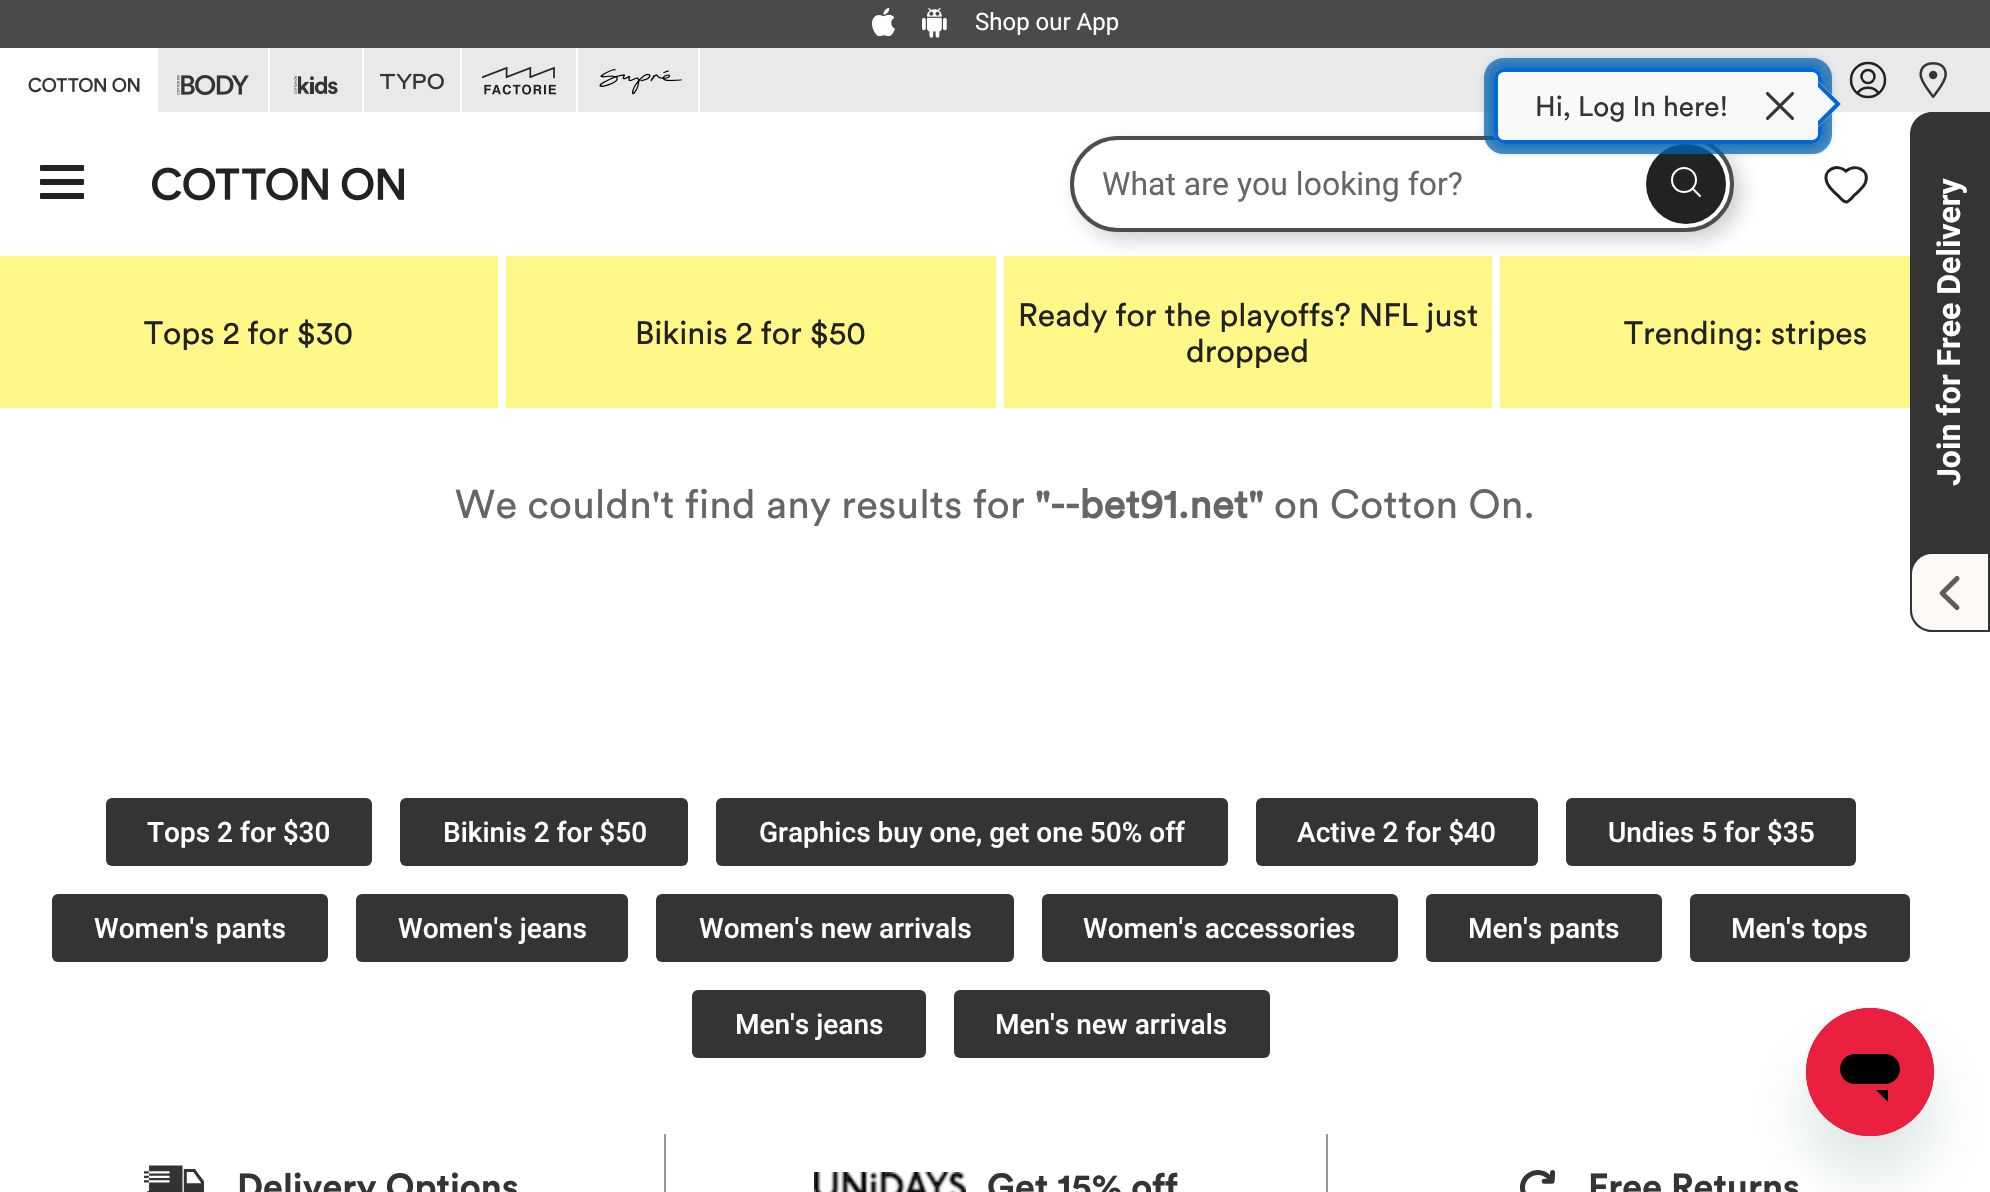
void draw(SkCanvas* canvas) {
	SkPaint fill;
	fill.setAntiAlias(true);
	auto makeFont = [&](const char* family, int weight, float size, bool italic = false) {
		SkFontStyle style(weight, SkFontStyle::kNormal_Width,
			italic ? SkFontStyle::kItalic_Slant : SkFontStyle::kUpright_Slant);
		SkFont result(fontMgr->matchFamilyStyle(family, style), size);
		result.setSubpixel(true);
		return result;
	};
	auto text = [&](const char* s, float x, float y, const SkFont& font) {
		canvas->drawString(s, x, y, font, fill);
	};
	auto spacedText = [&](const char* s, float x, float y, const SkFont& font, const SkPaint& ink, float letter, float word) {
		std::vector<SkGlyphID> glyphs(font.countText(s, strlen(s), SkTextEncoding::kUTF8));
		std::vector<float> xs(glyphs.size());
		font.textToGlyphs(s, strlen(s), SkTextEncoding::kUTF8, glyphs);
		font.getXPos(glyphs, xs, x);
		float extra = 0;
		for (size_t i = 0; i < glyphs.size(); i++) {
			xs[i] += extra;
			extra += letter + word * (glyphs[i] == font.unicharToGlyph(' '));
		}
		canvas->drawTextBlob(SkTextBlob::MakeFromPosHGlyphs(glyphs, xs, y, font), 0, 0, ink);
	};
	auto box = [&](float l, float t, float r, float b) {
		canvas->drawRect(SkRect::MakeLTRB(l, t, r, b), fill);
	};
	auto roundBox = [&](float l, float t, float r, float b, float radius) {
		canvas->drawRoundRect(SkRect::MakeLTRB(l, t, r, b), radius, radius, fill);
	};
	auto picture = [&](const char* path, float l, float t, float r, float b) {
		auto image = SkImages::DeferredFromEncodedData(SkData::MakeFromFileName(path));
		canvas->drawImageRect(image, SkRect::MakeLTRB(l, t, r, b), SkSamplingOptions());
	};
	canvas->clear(0xFFFFFFFF);
	fill.setColor(0xFF4A4A4A);
	box(0, 0, 1990, 48);
	picture("image0.png", 872, 8, 895, 37);
	picture("image1.png", 922, 8, 947, 38);
	fill.setColor(0xFFE9E9E9);
	box(158, 48, 1990, 112);
	picture("image2.png", 28, 77, 140, 93);
	fill.setColor(0xFFFFFFFF);
	box(268, 48, 270, 114);
	picture("image3.png", 177, 75, 249, 95);
	box(362, 48, 364, 114);
	picture("image4.png", 294, 76, 338, 95);
	box(460, 48, 462, 114);
	picture("image5.png", 380, 73, 444, 90);
	box(576, 48, 578, 114);
	picture("image6.png", 482, 66, 556, 95);
	box(698, 48, 700, 114);
	picture("image7.png", 599, 69, 682, 95);
	box(1822, 68, 1826, 96);
	fill.setStyle(SkPaint::kStroke_Style);
	fill.setStrokeWidth(2.5f);
	fill.setColor(0xFF222222);
	canvas->drawCircle(1868, 80, 17, fill);
	canvas->drawCircle(1868, 76.5f, 6.5f, fill);
	fill.setStrokeCap(SkPaint::kRound_Cap);
	canvas->drawPath(SkPathBuilder().moveTo(1878, 92.5f).cubicTo(1873.5f, 86, 1862.5f, 86, 1858, 92.5f).detach(), fill);
	picture("image8.png", 1919, 62, 1947, 98);
	fill.setStyle(SkPaint::kFill_Style);
	fill.setColor(0xFFFFF888);
	box(0, 256, 1910, 408);
	fill.setColor(0xFFFFFFFF);
	box(1492, 256, 1500, 408);
	fill.setColor(0x33131313);
	fill.setMaskFilter(SkMaskFilter::MakeBlur(kNormal_SkBlurStyle, 10));
	canvas->drawRoundRect(SkRect::MakeLTRB(1078, 144, 1742, 240), 48, 48, fill);
	fill.setMaskFilter(nullptr);
	fill.setColor(0xFFFFFFFF);
	canvas->drawRoundRect(SkRect::MakeLTRB(1072, 138, 1732, 230), 46, 46, fill);
	fill.setStyle(SkPaint::kStroke_Style);
	fill.setStrokeWidth(4);
	fill.setStrokeCap(SkPaint::kButt_Cap);
	fill.setColor(0xFF4D4D4D);
	canvas->drawRoundRect(SkRect::MakeLTRB(1072, 138, 1732, 230), 46, 46, fill);
	fill.setStyle(SkPaint::kFill_Style);
	fill.setColor(0xFF222222);
	canvas->drawCircle(1686, 184, 40, fill);
	fill.setStyle(SkPaint::kStroke_Style);
	fill.setStrokeWidth(3);
	canvas->drawPath(SkPathBuilder().moveTo(1846, 202).cubicTo(1843, 202, 1839, 196.5f, 1837.5f, 195).cubicTo(1833.5f, 191.5f, 1829, 188, 1827, 182.5f).cubicTo(1822, 170, 1836.5f, 163, 1846, 171).cubicTo(1855, 163.5f, 1870, 169.5f, 1865.5f, 182.5f).cubicTo(1863.5f, 187.5f, 1858.5f, 191.5f, 1854.5f, 195).cubicTo(1852.5f, 197, 1849, 202, 1846, 202).close().detach(), fill);
	fill.setStyle(SkPaint::kFill_Style);
	fill.setColor(0xB30060AC);
	fill.setMaskFilter(SkMaskFilter::MakeBlur(kNormal_SkBlurStyle, 6));
	canvas->drawRoundRect(SkRect::MakeLTRB(1490, 64, 1826, 148), 14, 14, fill);
	fill.setMaskFilter(nullptr);
	fill.setColor(0xFFFFFFFF);
	roundBox(1494, 68, 1822, 144, 10);
	fill.setStyle(SkPaint::kStroke_Style);
	fill.setStrokeWidth(10);
	fill.setColor(0xB30060AC);
	canvas->drawRoundRect(SkRect::MakeLTRB(1489, 63, 1827, 149), 15, 15, fill);
	fill.setStrokeWidth(4);
	fill.setColor(0xFF0367D8);
	canvas->drawRoundRect(SkRect::MakeLTRB(1496, 70, 1820, 142), 8, 8, fill);
	fill.setStyle(SkPaint::kFill_Style);
	fill.setColor(0xFFF8F8F8);
	canvas->drawPath(SkPathBuilder().moveTo(1841, 104).lineTo(1818, 127).lineTo(1795, 104).lineTo(1818, 81).close().detach(), fill);
	fill.setStyle(SkPaint::kStroke_Style);
	fill.setColor(0xFF0367D8);
	canvas->drawPath(SkPathBuilder().moveTo(1838, 104).lineTo(1818, 124).lineTo(1798, 104).lineTo(1818, 84).close().detach(), fill);
	fill.setStyle(SkPaint::kFill_Style);
	fill.setColor(0xFFF8F8F8);
	roundBox(1498, 72, 1818, 140, 10);
	picture("image9.png", 1766, 92, 1794, 120);
	picture("image10.png", 40, 165, 84, 199);
	picture("image11.png", 152, 167, 404, 201);
	fill.setStyle(SkPaint::kStroke_Style);
	fill.setStrokeWidth(2);
	fill.setStrokeCap(SkPaint::kRound_Cap);
	fill.setColor(0xFFFFFFFF);
	canvas->drawPath(SkPathBuilder().moveTo(1693, 189).lineTo(1700, 196).detach(), fill);
	fill.setStrokeCap(SkPaint::kButt_Cap);
	canvas->drawCircle(1684, 180, 12, fill);
	fill.setStyle(SkPaint::kFill_Style);
	box(498, 256, 506, 408);
	box(996, 256, 1004, 408);
	fill.setColor(0xFF333434);
	canvas->drawPath(SkPathBuilder().moveTo(1932, 112).lineTo(1990, 112).lineTo(1990, 632).lineTo(1932, 632).cubicTo(1920, 632, 1910, 622, 1910, 610).lineTo(1910, 134).cubicTo(1910, 122, 1920, 112, 1932, 112).close().detach(), fill);
	fill.setColor(0xFFFCF8F4);
	canvas->drawPath(SkPathBuilder().moveTo(1932, 553).lineTo(1989, 553).lineTo(1989, 631).lineTo(1932, 631).cubicTo(1920.5f, 631, 1911, 621.5f, 1911, 610).lineTo(1911, 574).cubicTo(1911, 562.5f, 1920.5f, 553, 1932, 553).close().detach(), fill);
	fill.setStyle(SkPaint::kStroke_Style);
	fill.setColor(0xFF333434);
	canvas->drawPath(SkPathBuilder().moveTo(1932, 553).lineTo(1989, 553).lineTo(1989, 631).lineTo(1932, 631).cubicTo(1920.5f, 631, 1911, 621.5f, 1911, 610).lineTo(1911, 574).cubicTo(1911, 562.5f, 1920.5f, 553, 1932, 553).close().detach(), fill);
	picture("image12.png", 1939, 576, 1960, 610);
	fill.setStyle(SkPaint::kFill_Style);
	roundBox(106, 798, 372, 866, 6);
	roundBox(400, 798, 688, 866, 6);
	roundBox(716, 798, 1228, 866, 6);
	roundBox(1256, 798, 1538, 866, 6);
	roundBox(1566, 798, 1856, 866, 6);
	roundBox(52, 894, 328, 962, 6);
	roundBox(356, 894, 628, 962, 6);
	roundBox(656, 894, 1014, 962, 6);
	roundBox(1042, 894, 1398, 962, 6);
	roundBox(1426, 894, 1662, 962, 6);
	roundBox(1690, 894, 1910, 962, 6);
	roundBox(692, 990, 926, 1058, 6);
	roundBox(954, 990, 1270, 1058, 6);
	picture("image13.png", 144, 1165, 204, 1192);
	fill.setColor(0xFF979797);
	box(664, 1134, 666, 1192);
	picture("image14.png", 814, 1172, 966, 1192);
	box(1326, 1134, 1328, 1192);
	picture("image15.png", 1520, 1170, 1556, 1192);
	fill.setColor(0x2617494D);
	fill.setMaskFilter(SkMaskFilter::MakeBlur(kNormal_SkBlurStyle, 30));
	canvas->drawRoundRect(SkRect::MakeLTRB(1806, 1048, 1934, 1176), 64, 64, fill);
	fill.setMaskFilter(nullptr);
	picture("image16.png", 1806, 1008, 1934, 1136);
	auto font1 = makeFont("Roboto", 400, 24);
	fill.setColor(0xFFFFFFFF);
	text("Shop our App", 975, 30, font1);
	auto font2 = makeFont("Circular", 400, 28);
	fill.setColor(0xFF333434);
	text("Hi, Log In here!", 1535, 116, font2);
	auto font3 = makeFont("Roboto", 400, 32);
	fill.setColor(0xFF666666);
	text("What are you looking for?", 1102, 195, font3);
	auto font4 = makeFont("Circular", 400, 32);
	fill.setColor(0xFF222222);
	text("Tops 2 for $30", 144, 344, font4);
	text("Bikinis 2 for $50", 635, 344, font4);
	text("Ready for the playoffs? NFL just", 1018, 326, font4);
	text("dropped", 1186, 362, font4);
	text("Trending: stripes", 1624, 344, font4);
	auto font5 = makeFont("Roboto", 700, 32);
	fill.setColor(0xFFFFFFFF);
	canvas->save();
	canvas->rotate(-90, 1960, 486);
	text("Join for Free Delivery", 1960, 486, font5);
	canvas->restore();
	auto font6 = makeFont("Circular", 400, 40);
	fill.setColor(0xFF666666);
	spacedText("We couldn't find any results for", 455, 518, font6, fill, 0.25f, 0);
	auto font7 = makeFont("Circular", 700, 40);
	spacedText("\"--bet91.net\"", 1035, 518, font7, fill, 0.25f, 0);
	spacedText("on Cotton On.", 1274, 518, font6, fill, 0.25f, 0);
	auto font8 = makeFont("Roboto", 500, 28);
	fill.setColor(0xFFFFFFFF);
	text("Tops 2 for $30", 147, 842, font8);
	text("Bikinis 2 for $50", 443, 842, font8);
	text("Graphics buy one, get one 50% off", 759, 842, font8);
	text("Active 2 for $40", 1297, 842, font8);
	text("Undies 5 for $35", 1608, 842, font8);
	text("Women's pants", 94, 938, font8);
	text("Women's jeans", 398, 938, font8);
	text("Women's new arrivals", 699, 938, font8);
	text("Women's accessories", 1083, 938, font8);
	text("Men's pants", 1468, 938, font8);
	text("Men's tops", 1731, 938, font8);
	text("Men's jeans", 735, 1034, font8);
	text("Men's new arrivals", 995, 1034, font8);
	auto font9 = makeFont("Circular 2", 700, 36);
	fill.setColor(0xFF333434);
	text("Delivery Options", 237, 1199, font9);
	text("Get 15% off", 987, 1199, font9);
	text("Free Returns", 1588, 1199, font9);
}
